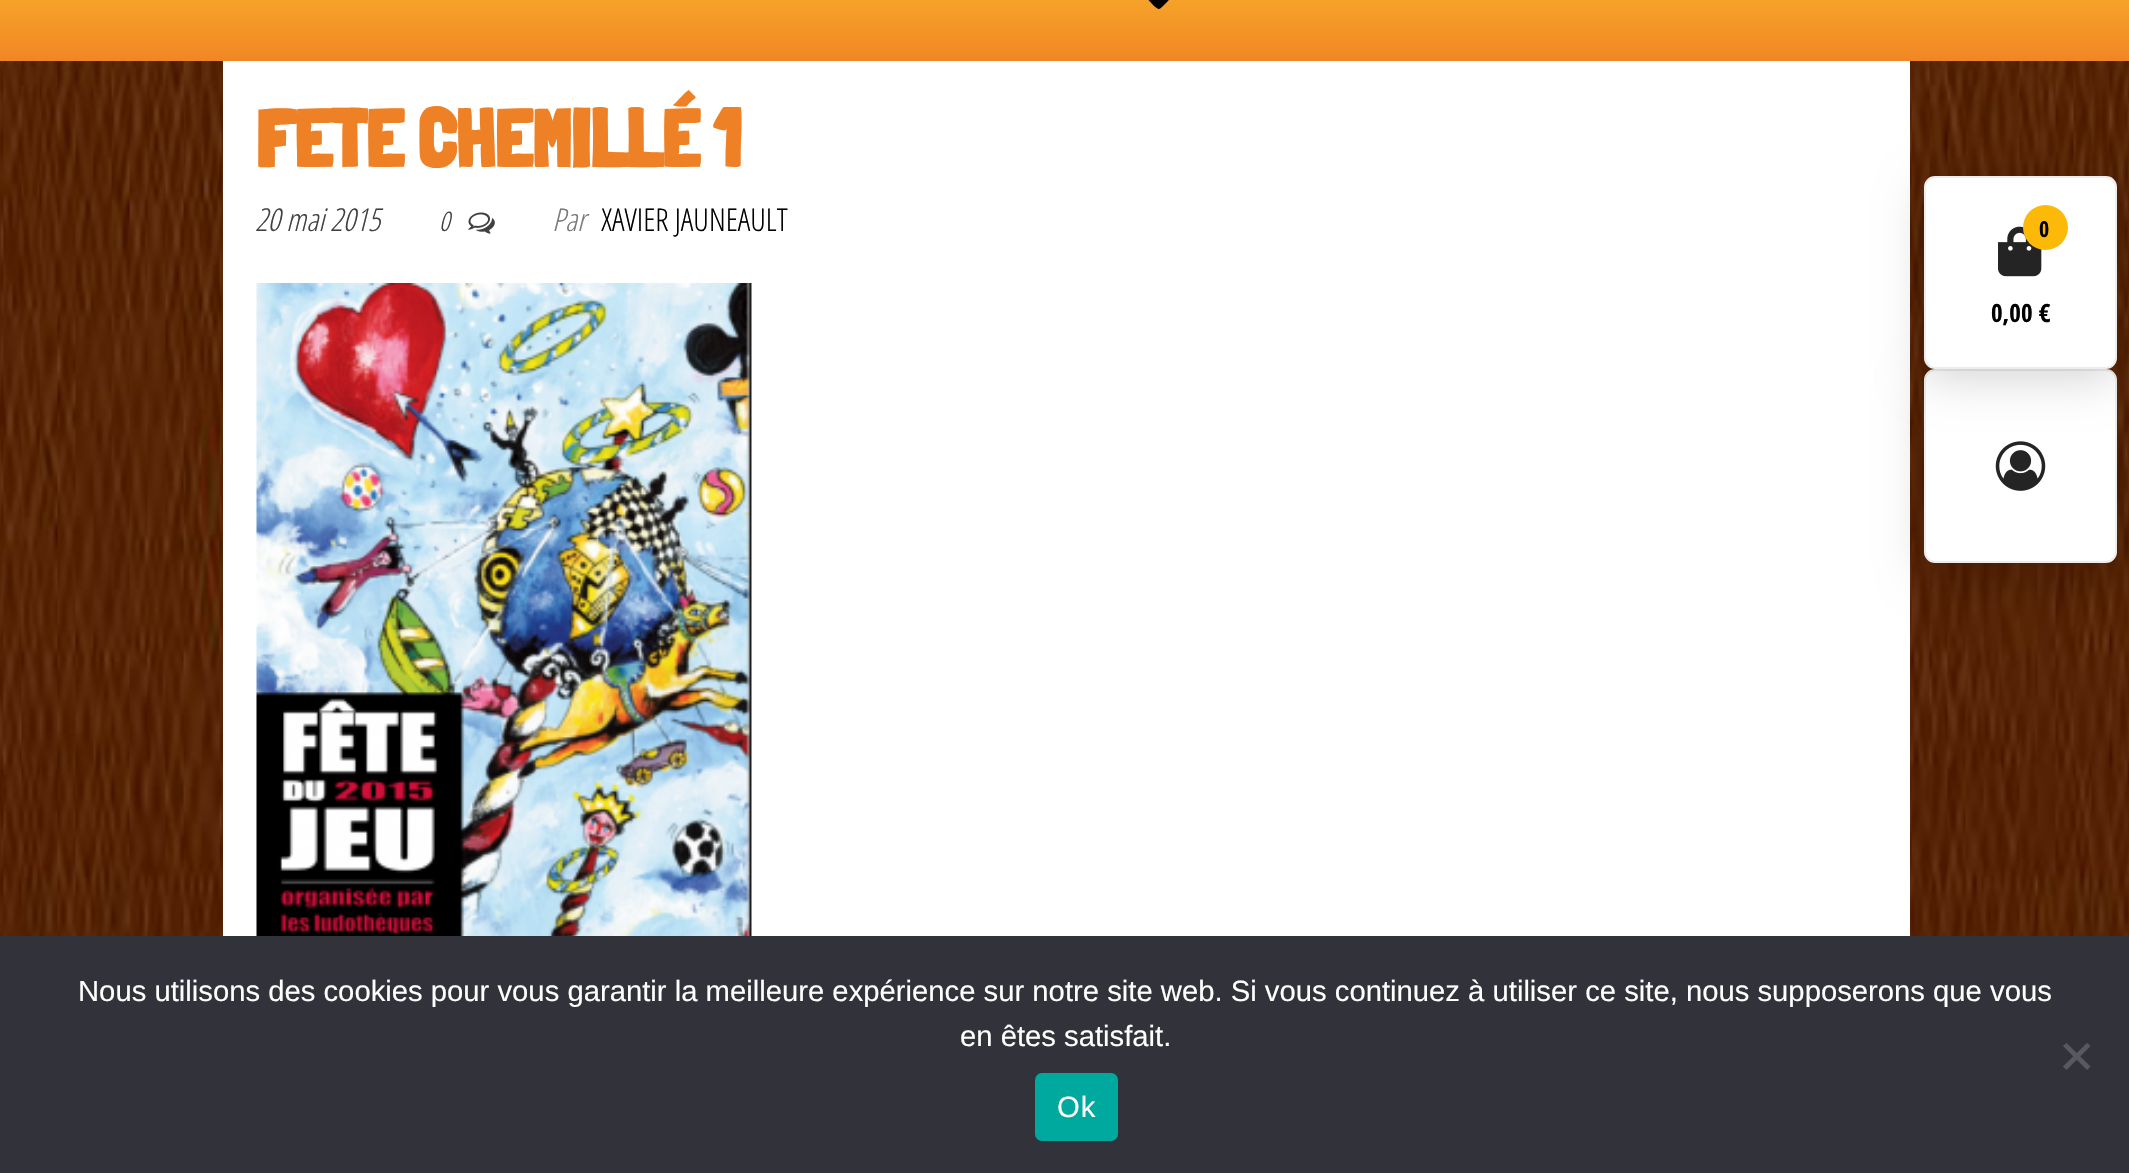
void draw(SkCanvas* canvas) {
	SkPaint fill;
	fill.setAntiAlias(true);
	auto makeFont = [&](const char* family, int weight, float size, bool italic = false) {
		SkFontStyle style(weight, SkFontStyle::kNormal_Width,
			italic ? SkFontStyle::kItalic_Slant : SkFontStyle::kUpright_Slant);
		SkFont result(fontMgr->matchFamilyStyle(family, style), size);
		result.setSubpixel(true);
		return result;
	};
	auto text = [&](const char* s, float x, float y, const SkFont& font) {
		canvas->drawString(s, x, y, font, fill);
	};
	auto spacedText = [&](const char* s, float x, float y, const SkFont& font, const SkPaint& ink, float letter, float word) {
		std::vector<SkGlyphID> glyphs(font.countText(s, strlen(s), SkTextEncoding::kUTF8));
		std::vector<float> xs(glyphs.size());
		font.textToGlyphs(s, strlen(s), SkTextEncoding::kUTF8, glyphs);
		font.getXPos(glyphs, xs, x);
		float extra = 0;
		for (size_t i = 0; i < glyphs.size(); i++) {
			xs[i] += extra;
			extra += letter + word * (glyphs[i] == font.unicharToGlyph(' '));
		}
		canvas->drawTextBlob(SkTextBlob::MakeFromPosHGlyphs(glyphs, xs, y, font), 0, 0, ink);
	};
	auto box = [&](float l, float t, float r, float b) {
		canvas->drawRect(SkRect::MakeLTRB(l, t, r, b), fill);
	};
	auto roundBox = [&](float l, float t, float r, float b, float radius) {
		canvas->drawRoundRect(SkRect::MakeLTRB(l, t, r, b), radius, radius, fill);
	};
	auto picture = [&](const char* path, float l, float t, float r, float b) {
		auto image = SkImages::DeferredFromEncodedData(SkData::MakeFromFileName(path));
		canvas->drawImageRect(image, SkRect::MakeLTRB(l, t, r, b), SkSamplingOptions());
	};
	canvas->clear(0xFFFFFFFF);
	picture("image0.png", 0, 61, 2129, 936);
	{
		const SkColor colors[] = {0xFFFED03D, 0xFFFCC42F, 0xFFF18624};
		const float stops[] = {0, 0.5f, 1};
		const SkPoint ends[] = {{1065, -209}, {1065, 61}};
		fill.setShader(SkGradientShader::MakeLinear(ends, colors, stops, 3, SkTileMode::kClamp));
		fill.setAlpha(255);
	}
	box(0, 0, 2129, 61);
	fill.setShader(nullptr);
	fill.setColor(0xFF000000);
	canvas->drawPath(SkPathBuilder().moveTo(1175, -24).cubicTo(1169, -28, 1163, -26, 1159, -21).cubicTo(1145, -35, 1132, -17, 1142, -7).lineTo(1154, 6).cubicTo(1159, 10, 1159, 10, 1163, 6).lineTo(1168, 1).cubicTo(1173, -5, 1181, -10, 1179, -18).cubicTo(1178, -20, 1177, -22, 1175, -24).close().detach(), fill);
	fill.setColor(0xFFFFFFFF);
	box(223, 61, 1910, 936);
	picture("image1.png", 468, 212, 495, 234);
	picture("image2.png", 256, 283, 752, 936);
	fill.setColor(0x2B000000);
	fill.setMaskFilter(SkMaskFilter::MakeBlur(kNormal_SkBlurStyle, 22.5f));
	canvas->drawRoundRect(SkRect::MakeLTRB(1924, 378, 2117, 572), 11, 11, fill);
	fill.setMaskFilter(nullptr);
	fill.setColor(0xFFFFFFFF);
	canvas->drawRoundRect(SkRect::MakeLTRB(1925, 370, 2116, 562), 10, 10, fill);
	fill.setStyle(SkPaint::kStroke_Style);
	fill.setStrokeWidth(2);
	fill.setColor(0xFFEDEDED);
	canvas->drawRoundRect(SkRect::MakeLTRB(1925, 370, 2116, 562), 10, 10, fill);
	picture("image4.png", 1995, 441, 2046, 491);
	fill.setStyle(SkPaint::kFill_Style);
	fill.setColor(0x2B000000);
	fill.setMaskFilter(SkMaskFilter::MakeBlur(kNormal_SkBlurStyle, 22.5f));
	canvas->drawRoundRect(SkRect::MakeLTRB(1924, 185, 2117, 378), 11, 11, fill);
	fill.setMaskFilter(nullptr);
	fill.setColor(0xFFFFFFFF);
	canvas->drawRoundRect(SkRect::MakeLTRB(1925, 177, 2116, 368), 10, 10, fill);
	fill.setStyle(SkPaint::kStroke_Style);
	fill.setColor(0xFFEDEDED);
	canvas->drawRoundRect(SkRect::MakeLTRB(1925, 177, 2116, 368), 10, 10, fill);
	picture("image3.png", 1998, 226, 2042, 277);
	fill.setStyle(SkPaint::kFill_Style);
	fill.setColor(0xFFFDB907);
	canvas->drawCircle(2045.5f, 227.5f, 22.5f, fill);
	fill.setColor(0xFF32323A);
	box(0, 936, 2129, 1173);
	fill.setColor(0xFF59595D);
	canvas->drawPath(SkPathBuilder().moveTo(2087, 1043).lineTo(2090.5f, 1046).lineTo(2066.5f, 1070).lineTo(2063, 1066.5f).close().detach(), fill);
	canvas->drawPath(SkPathBuilder().moveTo(2063, 1046).lineTo(2066.5f, 1043).lineTo(2090.5f, 1066.5f).lineTo(2087, 1070).close().detach(), fill);
	fill.setColor(0xFF00A99D);
	roundBox(1035, 1073, 1118, 1141, 7);
	auto font1 = makeFont("Londrina Solid", 700, 81);
	fill.setColor(0xFFEE8025);
	spacedText("FETE CHEMILLÉ 1", 255, 167, font1, fill, -1.6f, 0);
	auto font2 = makeFont("Open Sans Condensed", 300, 31.5f, true);
	fill.setColor(0xFF404040);
	text("20 mai 2015", 255, 231, font2);
	auto font3 = makeFont("Open Sans Condensed", 300, 27, true);
	text("0", 439, 231, font3);
	fill.setColor(0xFF797979);
	text("Par", 552, 231, font2);
	auto font4 = makeFont("Open Sans Condensed", 300, 31.5f);
	fill.setColor(0xFF000000);
	text("XAVIER JAUNEAULT", 601, 231, font4);
	auto font5 = makeFont("Open Sans Condensed", 700, 22);
	text("0", 2039, 237, font5);
	auto font6 = makeFont("Open Sans Condensed", 700, 25);
	text("0,00 €", 1991, 322, font6);
	auto font7 = makeFont("Liberation Sans", 400, 29.25f);
	fill.setColor(0xFFFFFFFF);
	text("Nous utilisons des cookies pour vous garantir la meilleure expérience sur notre site web. Si vous continuez à utiliser ce site, nous supposerons que vous", 78, 1001, font7);
	text("en êtes satisfait.", 960, 1046, font7);
	spacedText("Ok", 1057, 1117, font7, fill, 1, 0);
}
